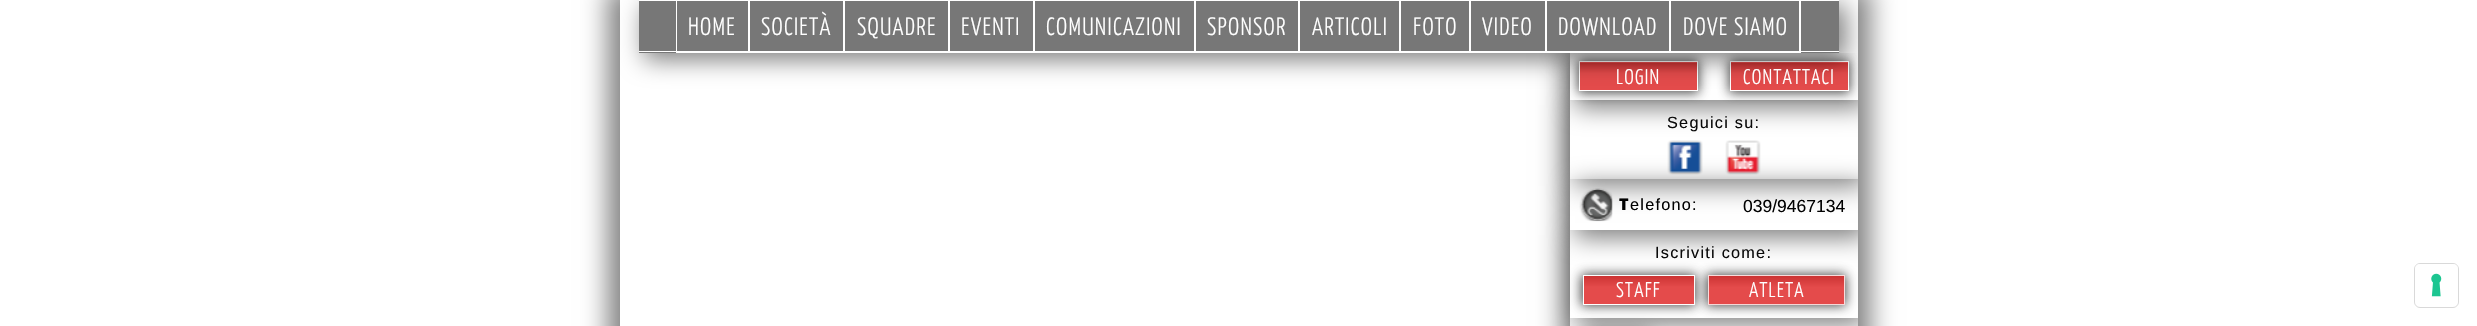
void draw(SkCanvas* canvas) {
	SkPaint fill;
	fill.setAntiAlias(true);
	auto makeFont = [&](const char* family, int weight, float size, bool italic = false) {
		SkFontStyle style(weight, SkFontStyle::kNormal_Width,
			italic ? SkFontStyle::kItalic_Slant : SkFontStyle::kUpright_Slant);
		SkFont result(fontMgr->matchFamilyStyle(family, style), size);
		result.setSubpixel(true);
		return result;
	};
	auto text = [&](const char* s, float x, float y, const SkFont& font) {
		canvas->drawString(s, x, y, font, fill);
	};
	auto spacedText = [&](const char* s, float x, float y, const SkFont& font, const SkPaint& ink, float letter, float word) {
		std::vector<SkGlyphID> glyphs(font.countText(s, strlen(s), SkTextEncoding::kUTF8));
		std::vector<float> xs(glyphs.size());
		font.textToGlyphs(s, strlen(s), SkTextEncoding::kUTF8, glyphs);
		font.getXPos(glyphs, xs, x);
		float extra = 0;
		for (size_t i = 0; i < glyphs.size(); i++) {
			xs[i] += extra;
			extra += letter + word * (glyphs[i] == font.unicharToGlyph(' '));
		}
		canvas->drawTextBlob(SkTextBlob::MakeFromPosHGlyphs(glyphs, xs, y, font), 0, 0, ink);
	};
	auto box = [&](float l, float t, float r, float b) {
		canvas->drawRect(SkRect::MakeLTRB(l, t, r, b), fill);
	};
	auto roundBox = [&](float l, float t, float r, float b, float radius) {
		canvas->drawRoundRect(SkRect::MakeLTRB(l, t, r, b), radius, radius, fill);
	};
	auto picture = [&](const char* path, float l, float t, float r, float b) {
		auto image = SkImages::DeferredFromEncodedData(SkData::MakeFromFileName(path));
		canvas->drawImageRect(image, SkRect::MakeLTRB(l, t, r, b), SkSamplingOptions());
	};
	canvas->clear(0xFFFFFFFF);
	fill.setColor(0x80000000);
	fill.setMaskFilter(SkMaskFilter::MakeBlur(kNormal_SkBlurStyle, 12.5f));
	canvas->drawRect(SkRect::MakeLTRB(608, -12, 1870, 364), fill);
	fill.setMaskFilter(nullptr);
	fill.setColor(0xFFFFFFFF);
	box(620, 0, 1858, 326);
	canvas->save();
	canvas->clipRect(SkRect::MakeLTRB(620, 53, 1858, 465));
	fill.setColor(0x80000000);
	fill.setMaskFilter(SkMaskFilter::MakeBlur(kNormal_SkBlurStyle, 12.5f));
	canvas->drawRect(SkRect::MakeLTRB(1563, 51, 1853, 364), fill);
	fill.setMaskFilter(nullptr);
	canvas->restore();
	fill.setColor(0xFFFFFFFF);
	box(1570, 100, 1858, 326);
	canvas->save();
	canvas->clipRect(SkRect::MakeLTRB(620, 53, 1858, 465));
	canvas->clipPath(SkPathBuilder(SkPathFillType::kEvenOdd).moveTo(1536, 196).lineTo(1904, 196).lineTo(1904, 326).lineTo(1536, 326).close().moveTo(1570, 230).lineTo(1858, 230).lineTo(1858, 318).lineTo(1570, 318).close().detach(), true);
	fill.setColor(0x80000000);
	fill.setMaskFilter(SkMaskFilter::MakeBlur(kNormal_SkBlurStyle, 12.5f));
	canvas->drawRect(SkRect::MakeLTRB(1575, 235, 1865, 325), fill);
	fill.setMaskFilter(nullptr);
	canvas->restore();
	fill.setColor(0xCC1B1B1B);
	fill.setMaskFilter(SkMaskFilter::MakeBlur(kNormal_SkBlurStyle, 6));
	canvas->drawRect(SkRect::MakeLTRB(1581, 274, 1696, 306), fill);
	fill.setMaskFilter(nullptr);
	{
		const SkColor colors[] = {0xFFCC3333, 0xFFE44B4B};
		const float stops[] = {0, 0.4f};
		const SkPoint ends[] = {{1639, 276}, {1639, 304}};
		fill.setShader(SkGradientShader::MakeLinear(ends, colors, stops, 2, SkTileMode::kClamp));
		fill.setAlpha(255);
	}
	box(1584, 276, 1694, 304);
	fill.setStyle(SkPaint::kStroke_Style);
	fill.setStrokeWidth(1);
	fill.setShader(nullptr);
	fill.setColor(0xFFFFFFFF);
	canvas->drawRect(SkRect::MakeLTRB(1583.5f, 275.5f, 1694.5f, 304.5f), fill);
	canvas->save();
	canvas->clipPath(SkPathBuilder(SkPathFillType::kEvenOdd).moveTo(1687, 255).lineTo(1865, 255).lineTo(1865, 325).lineTo(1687, 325).close().moveTo(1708, 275).lineTo(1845, 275).lineTo(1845, 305).lineTo(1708, 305).close().detach(), true);
	fill.setStyle(SkPaint::kFill_Style);
	fill.setColor(0xCC1B1B1B);
	fill.setMaskFilter(SkMaskFilter::MakeBlur(kNormal_SkBlurStyle, 6));
	canvas->drawRect(SkRect::MakeLTRB(1706, 274, 1846, 306), fill);
	fill.setMaskFilter(nullptr);
	canvas->restore();
	{
		const SkColor colors[] = {0xFFCC3333, 0xFFE44B4B};
		const float stops[] = {0, 0.4f};
		const SkPoint ends[] = {{1776, 249}, {1776, 276}};
		fill.setShader(SkGradientShader::MakeLinear(ends, colors, stops, 2, SkTileMode::kClamp));
		fill.setAlpha(255);
	}
	box(1708, 275, 1845, 276);
	{
		const SkColor colors[] = {0xCCBF0000, 0xCCDD1E1E};
		const float stops[] = {0, 0.4f};
		const SkPoint ends[] = {{1776, 276}, {1776, 304}};
		fill.setShader(SkGradientShader::MakeLinear(ends, colors, stops, 2, SkTileMode::kClamp));
		fill.setAlpha(255);
	}
	box(1708, 276, 1845, 304);
	{
		const SkColor colors[] = {0xFFCC3333, 0xFFE44B4B};
		const float stops[] = {0, 0.4f};
		const SkPoint ends[] = {{1776, 304}, {1776, 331}};
		fill.setShader(SkGradientShader::MakeLinear(ends, colors, stops, 2, SkTileMode::kClamp));
		fill.setAlpha(255);
	}
	box(1708, 304, 1845, 305);
	fill.setStyle(SkPaint::kStroke_Style);
	fill.setShader(nullptr);
	fill.setColor(0xCCFFFFFF);
	canvas->drawRect(SkRect::MakeLTRB(1708.5f, 275.5f, 1844.5f, 304.5f), fill);
	canvas->save();
	canvas->clipRect(SkRect::MakeLTRB(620, 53, 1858, 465));
	fill.setStyle(SkPaint::kFill_Style);
	fill.setColor(0x80000000);
	fill.setMaskFilter(SkMaskFilter::MakeBlur(kNormal_SkBlurStyle, 12.5f));
	canvas->drawRect(SkRect::MakeLTRB(1575, 184, 1865, 238), fill);
	fill.setMaskFilter(nullptr);
	canvas->restore();
	fill.setColor(0xFFFFFFFF);
	box(1570, 179, 1858, 230);
	picture("image2.png", 1579, 188, 1613, 222);
	canvas->save();
	canvas->clipRect(SkRect::MakeLTRB(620, 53, 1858, 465));
	canvas->clipPath(SkPathBuilder(SkPathFillType::kEvenOdd).moveTo(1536, 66).lineTo(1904, 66).lineTo(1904, 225).lineTo(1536, 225).close().moveTo(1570, 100).lineTo(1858, 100).lineTo(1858, 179).lineTo(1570, 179).close().detach(), true);
	fill.setColor(0x80000000);
	fill.setMaskFilter(SkMaskFilter::MakeBlur(kNormal_SkBlurStyle, 12.5f));
	canvas->drawRect(SkRect::MakeLTRB(1575, 105, 1865, 186), fill);
	fill.setMaskFilter(nullptr);
	canvas->restore();
	picture("image0.png", 1667, 140, 1703, 175);
	picture("image1.png", 1725, 140, 1761, 175);
	canvas->save();
	canvas->clipRect(SkRect::MakeLTRB(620, 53, 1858, 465));
	fill.setMaskFilter(SkMaskFilter::MakeBlur(kNormal_SkBlurStyle, 12.5f));
	canvas->drawRect(SkRect::MakeLTRB(1575, 58, 1865, 108), fill);
	fill.setMaskFilter(nullptr);
	canvas->restore();
	fill.setColor(0xFFFFFFFF);
	box(1570, 53, 1858, 100);
	fill.setColor(0xCC1B1B1B);
	fill.setMaskFilter(SkMaskFilter::MakeBlur(kNormal_SkBlurStyle, 6));
	canvas->drawRect(SkRect::MakeLTRB(1578, 60, 1699, 93), fill);
	fill.setMaskFilter(nullptr);
	{
		const SkColor colors[] = {0xFFCC3333, 0xFFE44B4B};
		const float stops[] = {0, 0.4f};
		const SkPoint ends[] = {{1638, 35}, {1638, 63}};
		fill.setShader(SkGradientShader::MakeLinear(ends, colors, stops, 2, SkTileMode::kClamp));
		fill.setAlpha(255);
	}
	box(1579, 62, 1698, 63);
	{
		const SkColor colors[] = {0xFFCC3333, 0xFFE44B4B};
		const float stops[] = {0, 0.4f};
		const SkPoint ends[] = {{1638, 62}, {1638, 90}};
		fill.setShader(SkGradientShader::MakeLinear(ends, colors, stops, 2, SkTileMode::kClamp));
		fill.setAlpha(255);
	}
	box(1580, 63, 1697, 90);
	fill.setStyle(SkPaint::kStroke_Style);
	fill.setShader(nullptr);
	fill.setColor(0xFFFFFFFF);
	canvas->drawRect(SkRect::MakeLTRB(1579.5f, 61.5f, 1697.5f, 90.5f), fill);
	canvas->save();
	canvas->clipRect(SkRect::MakeLTRB(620, 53, 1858, 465));
	fill.setStyle(SkPaint::kFill_Style);
	fill.setColor(0xCC1B1B1B);
	fill.setMaskFilter(SkMaskFilter::MakeBlur(kNormal_SkBlurStyle, 6));
	canvas->drawRect(SkRect::MakeLTRB(1729, 60, 1850, 93), fill);
	fill.setMaskFilter(nullptr);
	canvas->restore();
	{
		const SkColor colors[] = {0xFFCC3333, 0xFFE44B4B};
		const float stops[] = {0, 0.4f};
		const SkPoint ends[] = {{1789, 35}, {1789, 63}};
		fill.setShader(SkGradientShader::MakeLinear(ends, colors, stops, 2, SkTileMode::kClamp));
		fill.setAlpha(255);
	}
	box(1730, 62, 1849, 63);
	{
		const SkColor colors[] = {0xFFCC3333, 0xFFE44B4B};
		const float stops[] = {0, 0.4f};
		const SkPoint ends[] = {{1789, 62}, {1789, 90}};
		fill.setShader(SkGradientShader::MakeLinear(ends, colors, stops, 2, SkTileMode::kClamp));
		fill.setAlpha(255);
	}
	box(1731, 63, 1848, 90);
	fill.setStyle(SkPaint::kStroke_Style);
	fill.setShader(nullptr);
	fill.setColor(0xFFFFFFFF);
	canvas->drawRect(SkRect::MakeLTRB(1730.5f, 61.5f, 1848.5f, 90.5f), fill);
	canvas->save();
	canvas->clipRect(SkRect::MakeLTRB(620, 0, 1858, 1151));
	fill.setStyle(SkPaint::kFill_Style);
	fill.setColor(0x80000000);
	fill.setMaskFilter(SkMaskFilter::MakeBlur(kNormal_SkBlurStyle, 12.5f));
	canvas->drawRect(SkRect::MakeLTRB(644, 5, 1846, 60), fill);
	fill.setMaskFilter(nullptr);
	canvas->restore();
	fill.setColor(0xFF777777);
	box(639, 1, 1839, 53);
	fill.setColor(0xFFFFFFFF);
	box(639, 0, 1839, 1);
	box(639, 51, 1839, 52);
	fill.setStyle(SkPaint::kStroke_Style);
	canvas->drawRect(SkRect::MakeLTRB(676.5f, 0.5f, 748.5f, 52.5f), fill);
	canvas->drawRect(SkRect::MakeLTRB(749.5f, 0.5f, 843.5f, 52.5f), fill);
	canvas->drawRect(SkRect::MakeLTRB(844.5f, 0.5f, 948.5f, 52.5f), fill);
	canvas->drawRect(SkRect::MakeLTRB(949.5f, 0.5f, 1033.5f, 52.5f), fill);
	canvas->drawRect(SkRect::MakeLTRB(1034.5f, 0.5f, 1194.5f, 52.5f), fill);
	canvas->drawRect(SkRect::MakeLTRB(1195.5f, 0.5f, 1298.5f, 52.5f), fill);
	canvas->drawRect(SkRect::MakeLTRB(1299.5f, 0.5f, 1399.5f, 52.5f), fill);
	canvas->drawRect(SkRect::MakeLTRB(1400.5f, 0.5f, 1469.5f, 52.5f), fill);
	canvas->drawRect(SkRect::MakeLTRB(1470.5f, 0.5f, 1545.5f, 52.5f), fill);
	canvas->drawRect(SkRect::MakeLTRB(1546.5f, 0.5f, 1669.5f, 52.5f), fill);
	fill.setStyle(SkPaint::kFill_Style);
	box(1800, 0, 1801, 53);
	fill.setStyle(SkPaint::kStroke_Style);
	canvas->drawRect(SkRect::MakeLTRB(1670.5f, 0.5f, 1799.5f, 52.5f), fill);
	fill.setStyle(SkPaint::kFill_Style);
	fill.setColor(0xFF1B1B1B);
	fill.setMaskFilter(SkMaskFilter::MakeBlur(kNormal_SkBlurStyle, 9.5f));
	canvas->drawRect(SkRect::MakeLTRB(1585, 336, 1650, 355), fill);
	fill.setMaskFilter(nullptr);
	fill.setStyle(SkPaint::kStroke_Style);
	fill.setColor(0xFFD9D9D9);
	canvas->drawRoundRect(SkRect::MakeLTRB(2414.5f, 263.5f, 2458.5f, 307.5f), 5.5f, 5.5f, fill);
	fill.setStyle(SkPaint::kFill_Style);
	fill.setColor(0xFFFFFFFF);
	roundBox(2415, 264, 2458, 306, 5);
	picture("image3.png", 2431, 273, 2442, 297);
	auto font1 = makeFont("Yanone Kaffeesatz", 300, 25);
	spacedText("HOME", 688, 35, font1, fill, 1.25f, 0);
	spacedText("SOCIETÀ", 761, 35, font1, fill, 1.25f, 0);
	spacedText("SQUADRE", 857, 35, font1, fill, 1.25f, 0);
	spacedText("EVENTI", 961, 35, font1, fill, 1.25f, 0);
	spacedText("COMUNICAZIONI", 1046, 35, font1, fill, 1.25f, 0);
	spacedText("SPONSOR", 1207, 35, font1, fill, 1.25f, 0);
	spacedText("ARTICOLI", 1312, 35, font1, fill, 1.25f, 0);
	spacedText("FOTO", 1413, 35, font1, fill, 1.25f, 0);
	spacedText("VIDEO", 1482, 35, font1, fill, 1.25f, 0);
	spacedText("DOWNLOAD", 1558, 35, font1, fill, 1.25f, 0);
	spacedText("DOVE SIAMO", 1683, 35, font1, fill, 1.25f, 0);
	auto font2 = makeFont("Yanone Kaffeesatz", 300, 21.25f);
	spacedText("LOGIN", 1616, 84, font2, fill, 1.25f, 0);
	spacedText("CONTATTACI", 1743, 84, font2, fill, 1.25f, 0);
	auto font3 = makeFont("Liberation Sans", 400, 16.25f);
	fill.setColor(0xFF0A0A0A);
	spacedText("Seguici su:", 1667, 128, font3, fill, 1.25f, 0);
	auto font4 = makeFont("Noto Sans", 900, 16.25f);
	fill.setColor(0xFF000000);
	spacedText("T", 1619, 210, font4, fill, 1.25f, 0);
	spacedText("elefono:", 1630, 210, font3, fill, 1.25f, 0);
	auto font5 = makeFont("Liberation Sans", 400, 17.5f);
	text("039/9467134", 1743, 212, font5);
	fill.setColor(0xFF0A0A0A);
	spacedText("Iscriviti come:", 1655, 258, font3, fill, 1.25f, 0);
	fill.setColor(0xFFFFFFFF);
	spacedText("STAFF", 1616, 297, font2, fill, 1.25f, 0);
	spacedText("ATLETA", 1749, 297, font2, fill, 1.25f, 0);
}
